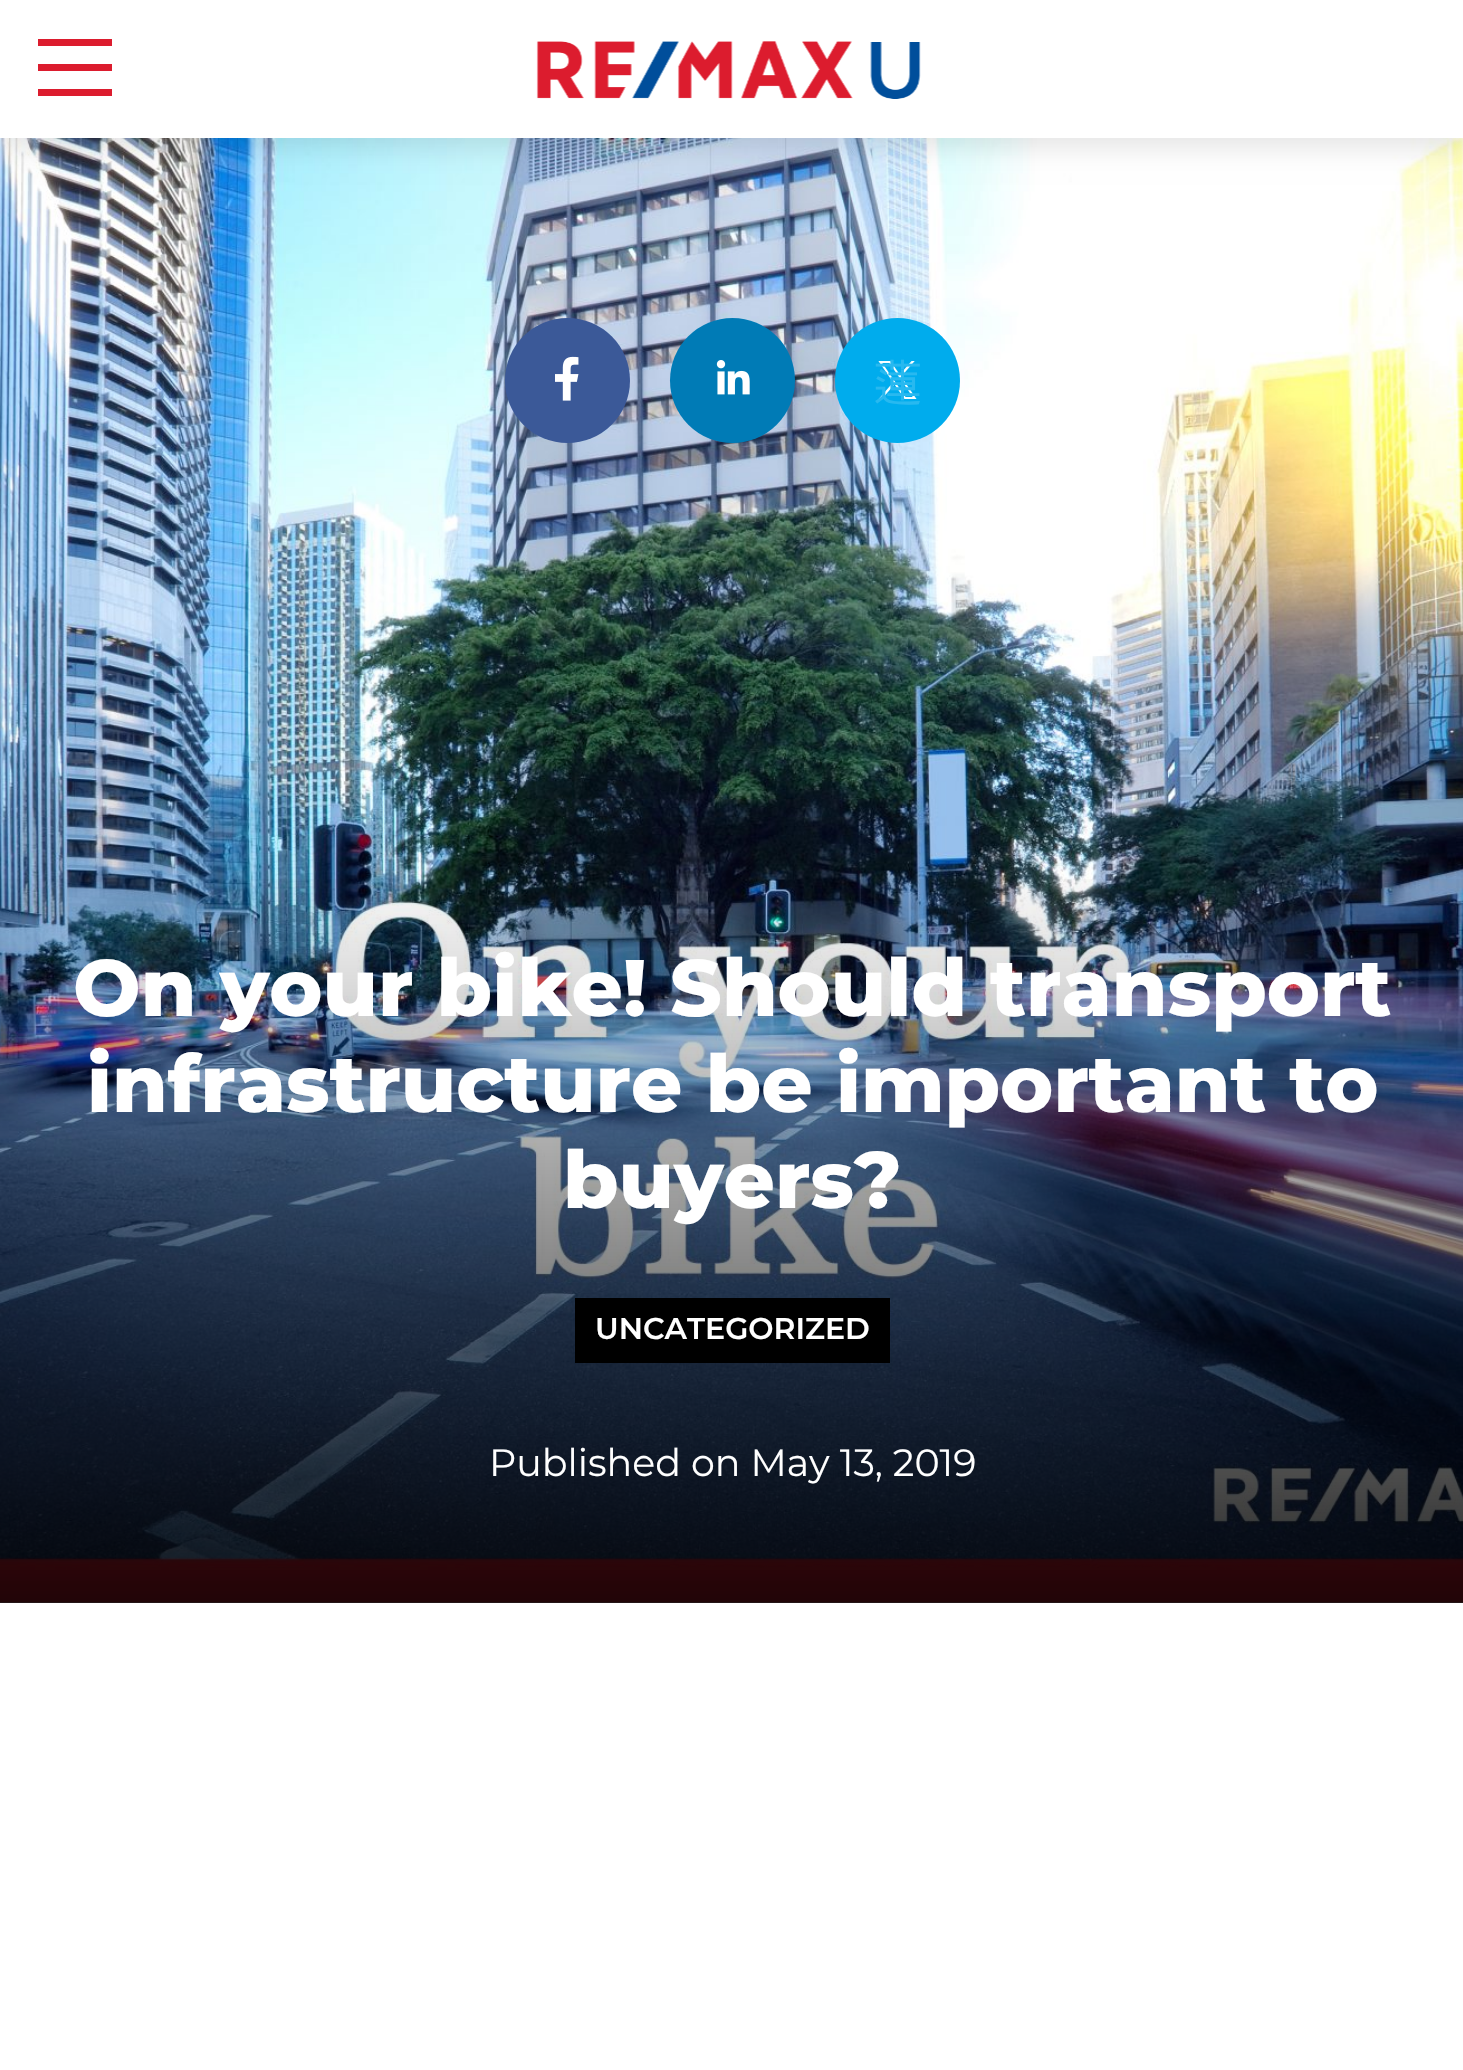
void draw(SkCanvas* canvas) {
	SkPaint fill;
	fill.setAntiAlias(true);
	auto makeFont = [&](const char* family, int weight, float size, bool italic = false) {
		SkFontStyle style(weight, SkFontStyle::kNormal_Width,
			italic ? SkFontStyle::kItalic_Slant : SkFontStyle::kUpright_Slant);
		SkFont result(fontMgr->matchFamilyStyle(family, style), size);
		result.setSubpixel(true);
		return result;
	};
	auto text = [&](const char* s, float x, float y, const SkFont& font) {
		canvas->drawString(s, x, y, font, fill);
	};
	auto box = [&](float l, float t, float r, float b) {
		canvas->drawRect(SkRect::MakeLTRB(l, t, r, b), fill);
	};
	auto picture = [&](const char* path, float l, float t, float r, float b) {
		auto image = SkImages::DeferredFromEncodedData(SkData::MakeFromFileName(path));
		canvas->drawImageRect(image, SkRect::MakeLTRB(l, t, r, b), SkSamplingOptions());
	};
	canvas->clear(0xFFFFFFFF);
	picture("image4.png", 0, 138, 1463, 1603);
	fill.setColor(0x1A000000);
	fill.setMaskFilter(SkMaskFilter::MakeBlur(kNormal_SkBlurStyle, 12.5f));
	canvas->drawRect(SkRect::MakeLTRB(0, 10, 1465, 148), fill);
	fill.setMaskFilter(nullptr);
	fill.setColor(0xFFFFFFFF);
	box(0, 0, 1463, 138);
	fill.setColor(0xFFDC1C2E);
	canvas->drawPath(SkPathBuilder().moveTo(38, 39).lineTo(38, 46).lineTo(112, 46).lineTo(112, 39).close().moveTo(38, 64).lineTo(38, 71).lineTo(112, 71).lineTo(112, 64).close().moveTo(38, 89).lineTo(38, 96).lineTo(112, 96).lineTo(112, 89).close().detach(), fill);
	picture("image0.png", 536, 41, 921, 99);
	fill.setColor(0xFF3B5998);
	canvas->drawCircle(567.5f, 380.5f, 62.5f, fill);
	picture("image1.png", 555, 356, 579, 401);
	fill.setColor(0xFF007BB6);
	canvas->drawCircle(732.5f, 380.5f, 62.5f, fill);
	picture("image2.png", 716, 360, 750, 395);
	fill.setColor(0xFF00ACED);
	canvas->drawCircle(897.5f, 380.5f, 62.5f, fill);
	picture("image3.png", 878, 361, 917, 399);
	{
		const SkColor colors[] = {0x00000000, 0xD9000000};
		const float stops[] = {0.1f, 1};
		const SkPoint ends[] = {{733, 778}, {733, 1603}};
		fill.setShader(SkGradientShader::MakeLinear(ends, colors, stops, 2, SkTileMode::kClamp));
		fill.setAlpha(255);
	}
	box(0, 879, 1463, 1603);
	fill.setShader(nullptr);
	fill.setColor(0xFF000000);
	box(575, 1298, 890, 1363);
	auto font1 = makeFont("WenQuanYi Zen Hei", 500, 50);
	fill.setColor(0xFF28B9F0);
	text("蓮", 873, 398, font1);
	auto font2 = makeFont("Montserrat", 100, 80);
	fill.setColor(0xFFFFFFFF);
	text("On your bike! Should transport", 73, 1016, font2);
	text("infrastructure be important to", 87, 1112, font2);
	text("buyers?", 563, 1208, font2);
	auto font3 = makeFont("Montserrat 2", 100, 30);
	text("UNCATEGORIZED", 595, 1339, font3);
	auto font4 = makeFont("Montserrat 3", 100, 38);
	text("Published on May 13, 2019", 489, 1476, font4);
}
